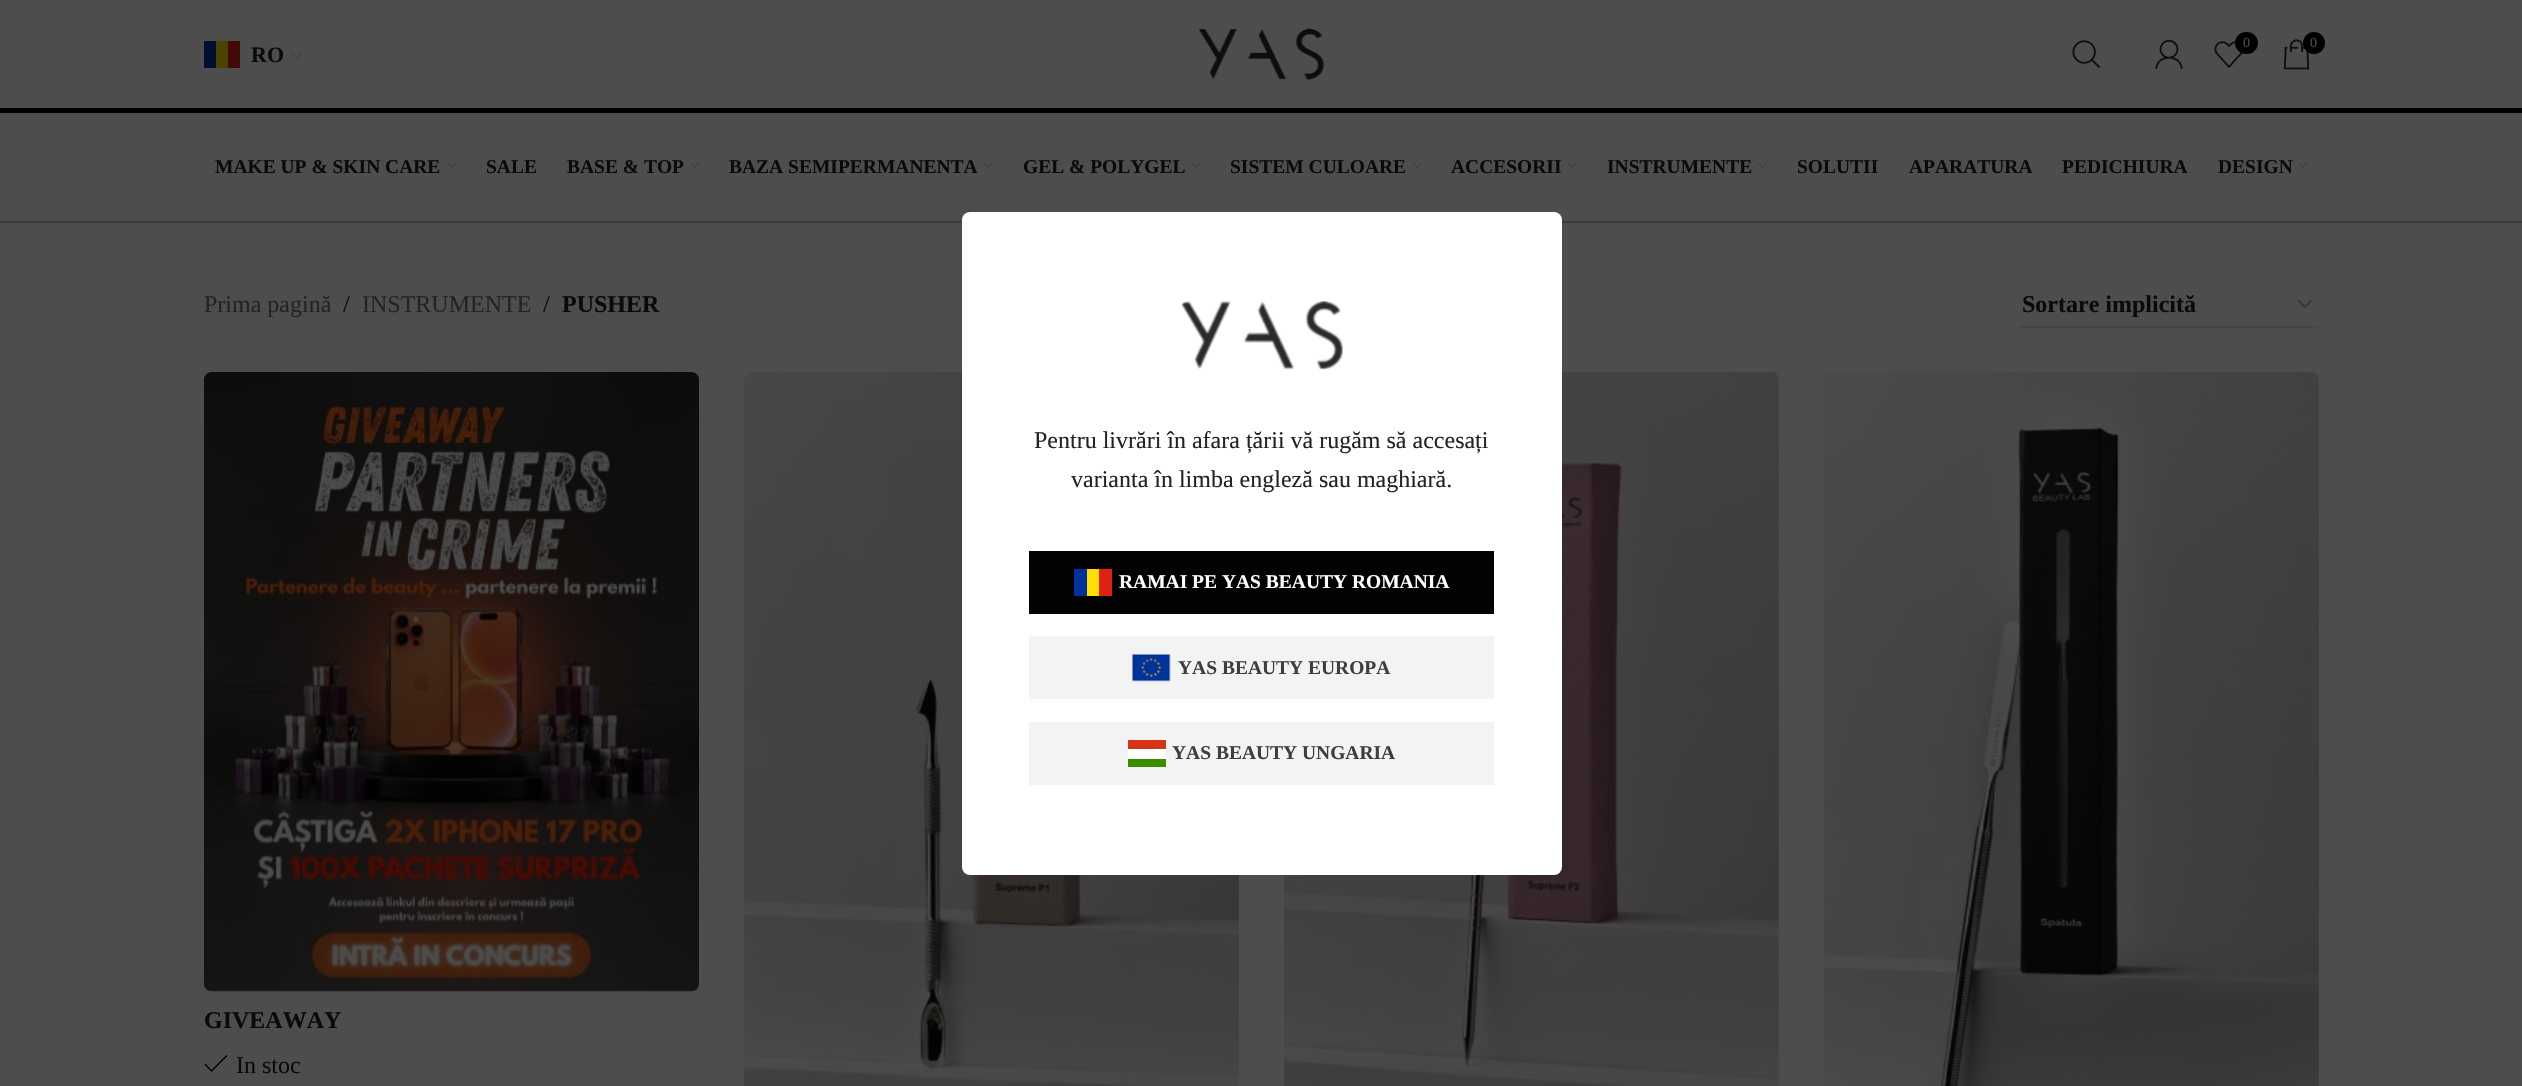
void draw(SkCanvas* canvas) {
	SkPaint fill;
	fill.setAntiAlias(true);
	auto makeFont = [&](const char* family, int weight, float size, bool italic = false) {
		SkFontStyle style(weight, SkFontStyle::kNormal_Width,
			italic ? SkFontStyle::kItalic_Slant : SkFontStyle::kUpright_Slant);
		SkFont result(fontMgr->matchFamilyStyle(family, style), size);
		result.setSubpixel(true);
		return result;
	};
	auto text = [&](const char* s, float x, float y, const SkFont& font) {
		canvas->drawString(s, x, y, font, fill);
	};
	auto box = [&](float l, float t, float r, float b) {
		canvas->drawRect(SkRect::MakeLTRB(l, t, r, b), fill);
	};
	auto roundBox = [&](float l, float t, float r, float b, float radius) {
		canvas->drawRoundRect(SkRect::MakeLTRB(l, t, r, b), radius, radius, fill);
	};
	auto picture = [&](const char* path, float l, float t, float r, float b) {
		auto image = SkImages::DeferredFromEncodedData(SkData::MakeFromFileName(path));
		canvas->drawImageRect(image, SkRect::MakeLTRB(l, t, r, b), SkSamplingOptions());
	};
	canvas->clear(0xFF4D4D4D);
	fill.setColor(0xFF000000);
	box(0, 108, 2522, 113);
	picture("image0.png", 1198, 28, 1325, 80);
	picture("image1.png", 2072, 40, 2101, 68);
	picture("image2.png", 2155, 39, 2183, 69);
	picture("image3.png", 2214, 41, 2243, 68);
	fill.setColor(0xFF010101);
	roundBox(2235, 32, 2258, 54, 11);
	picture("image4.png", 2283, 39, 2310, 70);
	canvas->drawCircle(2314, 43, 11, fill);
	fill.setColor(0xFF000F2F);
	box(204, 41, 216, 68);
	fill.setColor(0xFF4D4300);
	box(216, 41, 228, 68);
	fill.setColor(0xFF430A05);
	box(228, 41, 240, 68);
	picture("image5.png", 291, 52, 302, 58);
	fill.setColor(0xFF3D3D3D);
	box(0, 221, 2522, 223);
	picture("image6.png", 447, 162, 456, 168);
	picture("image6.png", 690, 162, 699, 168);
	picture("image6.png", 984, 162, 993, 168);
	picture("image6.png", 1191, 162, 1200, 168);
	picture("image6.png", 1413, 162, 1422, 168);
	picture("image7.png", 1567, 163, 1577, 168);
	picture("image6.png", 1758, 162, 1767, 168);
	picture("image6.png", 2298, 162, 2307, 168);
	fill.setStyle(SkPaint::kStroke_Style);
	fill.setStrokeWidth(2.2f);
	fill.setColor(0xFF383838);
	canvas->drawPath(SkPathBuilder().moveTo(2298.5f, 300.5f).lineTo(2305, 307).lineTo(2311.5f, 300.5f).detach(), fill);
	fill.setStyle(SkPaint::kFill_Style);
	fill.setColor(0xFF454545);
	box(2019, 326, 2319, 328);
	picture("image8.png", 204, 372, 699, 992);
	fill.setColor(0xFF010101);
	canvas->drawPath(SkPathBuilder().moveTo(227.5f, 1056).lineTo(226.5f, 1055).lineTo(211.5f, 1070).lineTo(205.5f, 1063.5f).lineTo(204.5f, 1064.5f).lineTo(211.5f, 1072).close().detach(), fill);
	picture("image9.png", 744, 372, 1239, 1086);
	picture("image10.png", 1284, 372, 1779, 1086);
	picture("image11.png", 1824, 372, 2319, 1086);
	fill.setColor(0xFFFFFFFF);
	roundBox(962, 212, 1562, 875, 8);
	picture("image12.png", 1181, 301, 1343, 370);
	fill.setColor(0xFF020202);
	box(1029, 551, 1494, 614);
	fill.setColor(0xFF00319C);
	box(1074, 569, 1087, 596);
	fill.setColor(0xFFFFDE00);
	box(1087, 569, 1099, 596);
	fill.setColor(0xFFDE2110);
	box(1099, 569, 1112, 596);
	fill.setColor(0xFFF3F3F3);
	box(1029, 636, 1494, 699);
	picture("image13.png", 1132, 654, 1171, 682);
	box(1029, 722, 1494, 785);
	fill.setColor(0xFFD43516);
	box(1128, 740, 1166, 749);
	fill.setColor(0xFFFFFFFF);
	box(1128, 749, 1166, 759);
	fill.setColor(0xFF388D00);
	box(1128, 759, 1166, 767);
	auto font1 = makeFont("Liberation Serif", 400, 14);
	fill.setColor(0xFF4D4D4D);
	text("0", 2243, 47, font1);
	text("0", 2310, 47, font1);
	auto font2 = makeFont("Liberation Serif", 700, 22);
	fill.setColor(0xFF0A0A0A);
	text("RO", 251, 62, font2);
	auto font3 = makeFont("Liberation Serif", 700, 19.5f);
	text("MAKE UP & SKIN CARE", 215, 173, font3);
	text("SALE", 486, 173, font3);
	text("BASE & TOP", 567, 173, font3);
	text("BAZA SEMIPERMANENTA", 729, 173, font3);
	text("GEL & POLYGEL", 1023, 173, font3);
	text("SISTEM CULOARE", 1230, 173, font3);
	text("ACCESORII", 1451, 173, font3);
	text("INSTRUMENTE", 1607, 173, font3);
	text("SOLUTII", 1797, 173, font3);
	text("APARATURA", 1909, 173, font3);
	text("PEDICHIURA", 2062, 173, font3);
	text("DESIGN", 2218, 173, font3);
	auto font4 = makeFont("Liberation Serif", 400, 24);
	fill.setColor(0xFF232323);
	text("Prima pagină", 204, 312, font4);
	fill.setColor(0xFF0A0A0A);
	text("/", 343, 312, font4);
	fill.setColor(0xFF232323);
	text("INSTRUMENTE", 362, 312, font4);
	fill.setColor(0xFF0A0A0A);
	text("/", 543, 312, font4);
	auto font5 = makeFont("Liberation Serif", 700, 24);
	text("PUSHER", 562, 312, font5);
	text("Sortare implicită", 2022, 312, font5);
	text("GIVEAWAY", 204, 1028, font5);
	text("In stoc", 236, 1073, font4);
	fill.setColor(0xFF232323);
	text("Pentru livrări în afara țării vă rugăm să accesați", 1034, 448, font4);
	text("varianta în limba engleză sau maghiară.", 1071, 487, font4);
	fill.setColor(0xFFFFFFFF);
	text("RAMAI PE YAS BEAUTY ROMANIA", 1119, 588, font3);
	fill.setColor(0xFF3E3E3E);
	text("YAS BEAUTY EUROPA", 1178, 674, font3);
	text("YAS BEAUTY UNGARIA", 1172, 759, font3);
}
